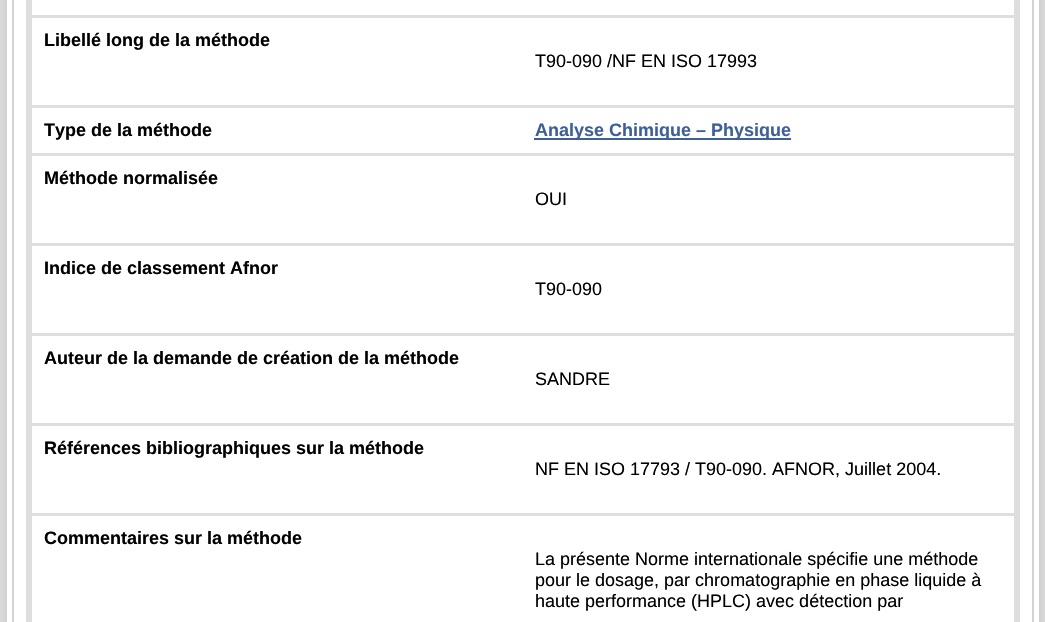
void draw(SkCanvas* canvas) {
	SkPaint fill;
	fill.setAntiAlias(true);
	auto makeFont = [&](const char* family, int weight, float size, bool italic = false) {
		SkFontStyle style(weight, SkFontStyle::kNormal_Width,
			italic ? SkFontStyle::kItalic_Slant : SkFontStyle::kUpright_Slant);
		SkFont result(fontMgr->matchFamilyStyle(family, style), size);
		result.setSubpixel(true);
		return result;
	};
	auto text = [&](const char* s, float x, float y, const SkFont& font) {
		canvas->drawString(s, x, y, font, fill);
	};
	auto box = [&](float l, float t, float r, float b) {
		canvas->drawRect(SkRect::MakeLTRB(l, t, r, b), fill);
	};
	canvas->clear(0xFFFFFFFF);
	canvas->save();
	canvas->clipPath(SkPathBuilder(SkPathFillType::kEvenOdd).moveTo(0, 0).lineTo(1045, 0).lineTo(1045, 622).lineTo(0, 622).close().moveTo(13, -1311).lineTo(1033, -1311).cubicTo(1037.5f, -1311, 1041, -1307.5f, 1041, -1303).lineTo(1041, 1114).cubicTo(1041, 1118.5f, 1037.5f, 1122, 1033, 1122).lineTo(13, 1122).cubicTo(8.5f, 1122, 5, 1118.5f, 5, 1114).lineTo(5, -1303).cubicTo(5, -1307.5f, 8.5f, -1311, 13, -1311).close().detach(), true);
	fill.setColor(0xFFAAAAAA);
	fill.setMaskFilter(SkMaskFilter::MakeBlur(kNormal_SkBlurStyle, 30));
	canvas->drawRoundRect(SkRect::MakeLTRB(5, -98, 1041, 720), 8, 8, fill);
	fill.setMaskFilter(nullptr);
	canvas->restore();
	fill.setStyle(SkPaint::kStroke_Style);
	fill.setStrokeWidth(2);
	fill.setColor(0xFFD2D2D2);
	canvas->drawRect(SkRect::MakeLTRB(6, -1, 1040, 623), fill);
	fill.setColor(0xFFD3D3D3);
	canvas->drawRect(SkRect::MakeLTRB(13, -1, 1033, 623), fill);
	fill.setStrokeWidth(6);
	fill.setColor(0xFFDEDEDE);
	canvas->drawRect(SkRect::MakeLTRB(29, -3, 1017, 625), fill);
	fill.setStyle(SkPaint::kFill_Style);
	box(30, 15, 1016, 18);
	box(30, 105, 1016, 108);
	fill.setColor(0xFF3D6098);
	box(534, 138, 791, 140);
	fill.setColor(0xFFDEDEDE);
	box(30, 153, 1016, 156);
	box(30, 243, 1016, 246);
	box(30, 333, 1016, 336);
	box(30, 423, 1016, 426);
	box(30, 513, 1016, 516);
	auto font1 = makeFont("Liberation Sans", 700, 18);
	fill.setColor(0xFF000000);
	text("Libellé long de la méthode", 44, 46, font1);
	auto font2 = makeFont("Liberation Sans", 400, 18);
	text("T90-090 /NF EN ISO 17993", 535, 67, font2);
	text("Type de la méthode", 44, 136, font1);
	fill.setColor(0xFF3D6098);
	text("Analyse Chimique – Physique", 535, 136, font1);
	fill.setColor(0xFF000000);
	text("Méthode normalisée", 44, 184, font1);
	text("OUI", 535, 205, font2);
	text("Indice de classement Afnor", 44, 274, font1);
	text("T90-090", 535, 295, font2);
	text("Auteur de la demande de création de la méthode", 44, 364, font1);
	text("SANDRE", 535, 385, font2);
	text("Références bibliographiques sur la méthode", 44, 454, font1);
	text("NF EN ISO 17793 / T90-090. AFNOR, Juillet 2004.", 535, 475, font2);
	text("Commentaires sur la méthode", 44, 544, font1);
	text("La présente Norme internationale spécifie une méthode", 535, 565, font2);
	text("pour le dosage, par chromatographie en phase liquide à", 535, 586, font2);
	text("haute performance (HPLC) avec détection par", 535, 607, font2);
}
